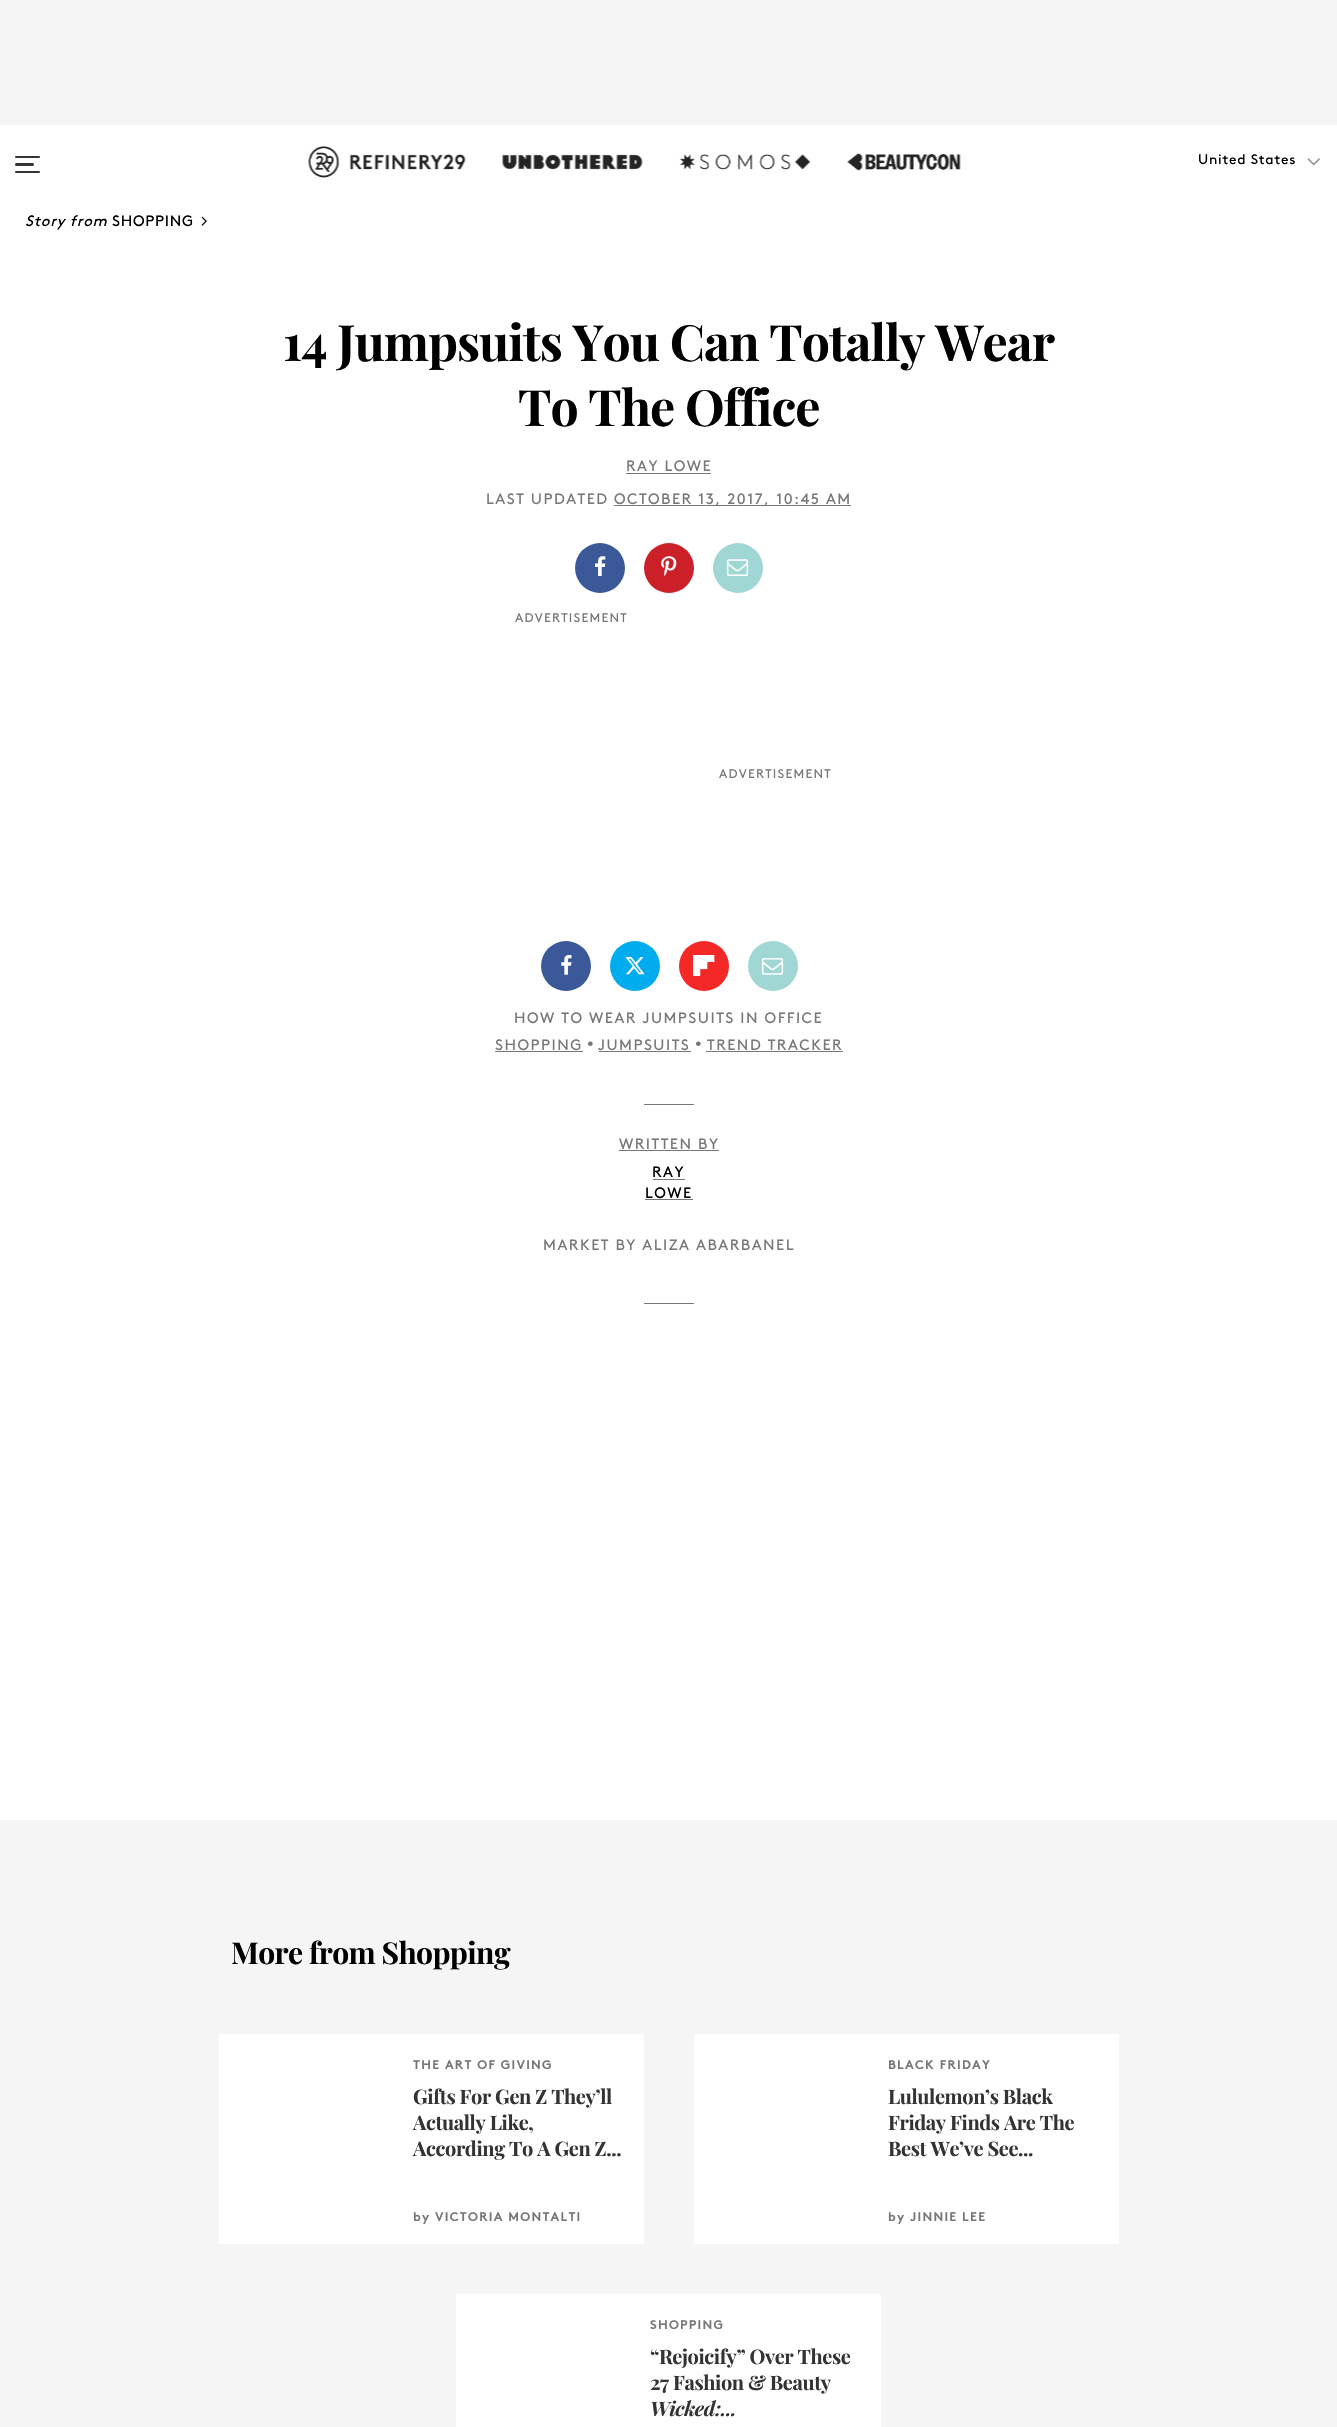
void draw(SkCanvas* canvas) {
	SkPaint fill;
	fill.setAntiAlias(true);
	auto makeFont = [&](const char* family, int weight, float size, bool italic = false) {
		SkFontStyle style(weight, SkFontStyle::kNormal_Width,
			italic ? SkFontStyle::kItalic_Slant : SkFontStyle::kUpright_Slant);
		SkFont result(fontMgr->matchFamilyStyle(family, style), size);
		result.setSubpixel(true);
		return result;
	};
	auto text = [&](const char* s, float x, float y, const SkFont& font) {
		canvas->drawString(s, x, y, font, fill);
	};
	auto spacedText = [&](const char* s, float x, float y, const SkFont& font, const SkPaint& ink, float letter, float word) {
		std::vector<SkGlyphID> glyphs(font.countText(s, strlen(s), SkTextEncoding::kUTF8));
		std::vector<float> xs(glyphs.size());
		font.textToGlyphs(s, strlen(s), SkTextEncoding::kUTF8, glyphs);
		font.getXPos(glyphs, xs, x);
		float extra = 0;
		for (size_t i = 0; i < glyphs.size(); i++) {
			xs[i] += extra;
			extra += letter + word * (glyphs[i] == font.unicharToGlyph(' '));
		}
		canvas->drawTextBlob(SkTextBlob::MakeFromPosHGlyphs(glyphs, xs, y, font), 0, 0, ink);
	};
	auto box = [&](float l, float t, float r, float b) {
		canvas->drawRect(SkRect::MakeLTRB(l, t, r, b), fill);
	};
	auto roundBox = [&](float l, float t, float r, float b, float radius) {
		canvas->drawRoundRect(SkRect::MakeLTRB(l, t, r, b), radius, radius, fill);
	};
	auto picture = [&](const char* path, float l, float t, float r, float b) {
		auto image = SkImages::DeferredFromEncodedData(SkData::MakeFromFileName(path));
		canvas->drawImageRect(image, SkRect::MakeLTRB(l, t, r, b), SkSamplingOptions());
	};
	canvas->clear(0xFFF5F5F5);
	fill.setColor(0xFFFFFFFF);
	box(0, 125, 1337, 1820);
	fill.setColor(0xFF333333);
	roundBox(15, 156, 40, 158, 1);
	roundBox(15, 163, 34, 166, 1.5f);
	roundBox(15, 171, 40, 173, 1);
	picture("image0.png", 308, 146, 466, 178);
	picture("image1.png", 502, 154, 643, 170);
	picture("image2.png", 679, 154, 811, 170);
	picture("image3.png", 847, 153, 961, 171);
	picture("image4.png", 1307, 158, 1320, 166);
	picture("image5.png", 201, 216, 207, 226);
	fill.setColor(0xFF787679);
	box(626, 473, 711, 474);
	box(614, 505, 851, 506);
	fill.setColor(0xFF3B5998);
	canvas->drawCircle(600, 568, 25, fill);
	picture("image6.png", 595, 556, 606, 576);
	fill.setColor(0xFFCB2027);
	canvas->drawCircle(669, 568, 25, fill);
	picture("image7.png", 661, 556, 677, 576);
	fill.setColor(0xFFA0D7D5);
	canvas->drawCircle(738, 568, 25, fill);
	picture("image8.png", 726, 559, 749, 576);
	fill.setColor(0xFF3B5998);
	canvas->drawCircle(566, 966, 25, fill);
	picture("image9.png", 561, 955, 572, 975);
	fill.setColor(0xFF00ACED);
	canvas->drawCircle(635, 966, 25, fill);
	picture("image10.png", 625, 957, 645, 975);
	fill.setColor(0xFFF52828);
	canvas->drawCircle(704, 966, 25, fill);
	picture("image11.png", 693, 955, 715, 976);
	fill.setColor(0xFFA0D7D5);
	canvas->drawCircle(773, 966, 25, fill);
	picture("image12.png", 761, 958, 784, 975);
	fill.setColor(0xFF787679);
	box(495, 1051, 583, 1052);
	box(599, 1051, 691, 1052);
	box(706, 1051, 843, 1052);
	box(644, 1104, 694, 1105);
	box(619, 1150, 719, 1151);
	box(653, 1179, 685, 1180);
	box(645, 1199, 693, 1200);
	box(644, 1303, 694, 1304);
	fill.setColor(0xFFFFFFFF);
	box(219, 2034, 644, 2244);
	box(694, 2034, 1119, 2244);
	box(456, 2294, 881, 2427);
	auto font1 = makeFont("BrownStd", 400, 13.75f);
	fill.setColor(0xFF000000);
	spacedText("United States", 1198, 164, font1, fill, 0.75f, 0);
	auto font2 = makeFont("BrownStd", 400, 15, true);
	spacedText("Story from", 25, 226, font2, fill, 0.75f, 0);
	auto font3 = makeFont("BrownStd", 400, 15);
	spacedText("SHOPPING", 112, 226, font3, fill, 0.75f, 0);
	auto font4 = makeFont("Playfair Display", 700, 50);
	spacedText("14 Jumpsuits You Can Totally Wear", 283, 361, font4, fill, -1, 0);
	spacedText("To The Office", 518, 426, font4, fill, -1, 0);
	fill.setColor(0xFF787679);
	spacedText("RAY LOWE", 626, 471, font3, fill, 1.5f, 0);
	spacedText("LAST UPDATED", 486, 504, font3, fill, 1.5f, 0);
	spacedText("OCTOBER 13, 2017, 10:45 AM", 614, 504, font3, fill, 1.5f, 0);
	auto font5 = makeFont("BrownStd", 400, 12.5f);
	spacedText("ADVERTISEMENT", 515, 622, font5, fill, 1.25f, 0);
	spacedText("ADVERTISEMENT", 719, 778, font5, fill, 1.25f, 0);
	spacedText("HOW TO WEAR JUMPSUITS IN OFFICE", 514, 1023, font3, fill, 1.5f, 0);
	spacedText("SHOPPING", 495, 1050, font3, fill, 1.5f, 0);
	auto font6 = makeFont("Liberation Serif", 400, 19);
	text("•", 587, 1050, font6);
	spacedText("JUMPSUITS", 598, 1050, font3, fill, 1.5f, 0);
	text("•", 695, 1050, font6);
	spacedText("TREND TRACKER", 707, 1050, font3, fill, 1.5f, 0);
	spacedText("WRITTEN BY", 619, 1149, font3, fill, 1.5f, 0);
	fill.setColor(0xFF000000);
	spacedText("RAY", 652, 1177, font3, fill, 1.5f, 0);
	spacedText("LOWE", 645, 1198, font3, fill, 1.5f, 0);
	fill.setColor(0xFF787679);
	spacedText("MARKET BY ALIZA ABARBANEL", 543, 1250, font3, fill, 1.5f, 0);
	auto font7 = makeFont("Playfair Display", 700, 30);
	fill.setColor(0xFF000000);
	spacedText("More from Shopping", 231, 1964, font7, fill, -0.6f, 0);
	auto font8 = makeFont("BrownStd", 700, 12.5f);
	fill.setColor(0xFF787679);
	spacedText("THE ART OF GIVING", 413, 2069, font8, fill, 1.25f, 0);
	auto font9 = makeFont("Playfair Display", 700, 20);
	fill.setColor(0xFF333333);
	spacedText("Gifts For Gen Z They’ll", 413, 2104, font9, fill, -0.4f, 0);
	spacedText("Actually Like,", 413, 2130, font9, fill, -0.4f, 0);
	spacedText("According To A Gen Z...", 413, 2156, font9, fill, -0.4f, 0);
	fill.setColor(0xFF787679);
	spacedText("by VICTORIA MONTALTI", 413, 2221, font8, fill, 1.25f, 0);
	spacedText("BLACK FRIDAY", 888, 2069, font8, fill, 1.25f, 0);
	fill.setColor(0xFF333333);
	spacedText("Lululemon’s Black", 888, 2104, font9, fill, -0.4f, 0);
	spacedText("Friday Finds Are The", 888, 2130, font9, fill, -0.4f, 0);
	spacedText("Best We’ve See...", 888, 2156, font9, fill, -0.4f, 0);
	fill.setColor(0xFF787679);
	spacedText("by JINNIE LEE", 888, 2221, font8, fill, 1.25f, 0);
	spacedText("SHOPPING", 650, 2329, font8, fill, 1.25f, 0);
	fill.setColor(0xFF333333);
	spacedText("“Rejoicify” Over These", 650, 2364, font9, fill, -0.4f, 0);
	spacedText("27 Fashion & Beauty", 650, 2390, font9, fill, -0.4f, 0);
	auto font10 = makeFont("Playfair Display", 700, 20, true);
	spacedText("Wicked:...", 650, 2416, font10, fill, -0.4f, 0);
}
